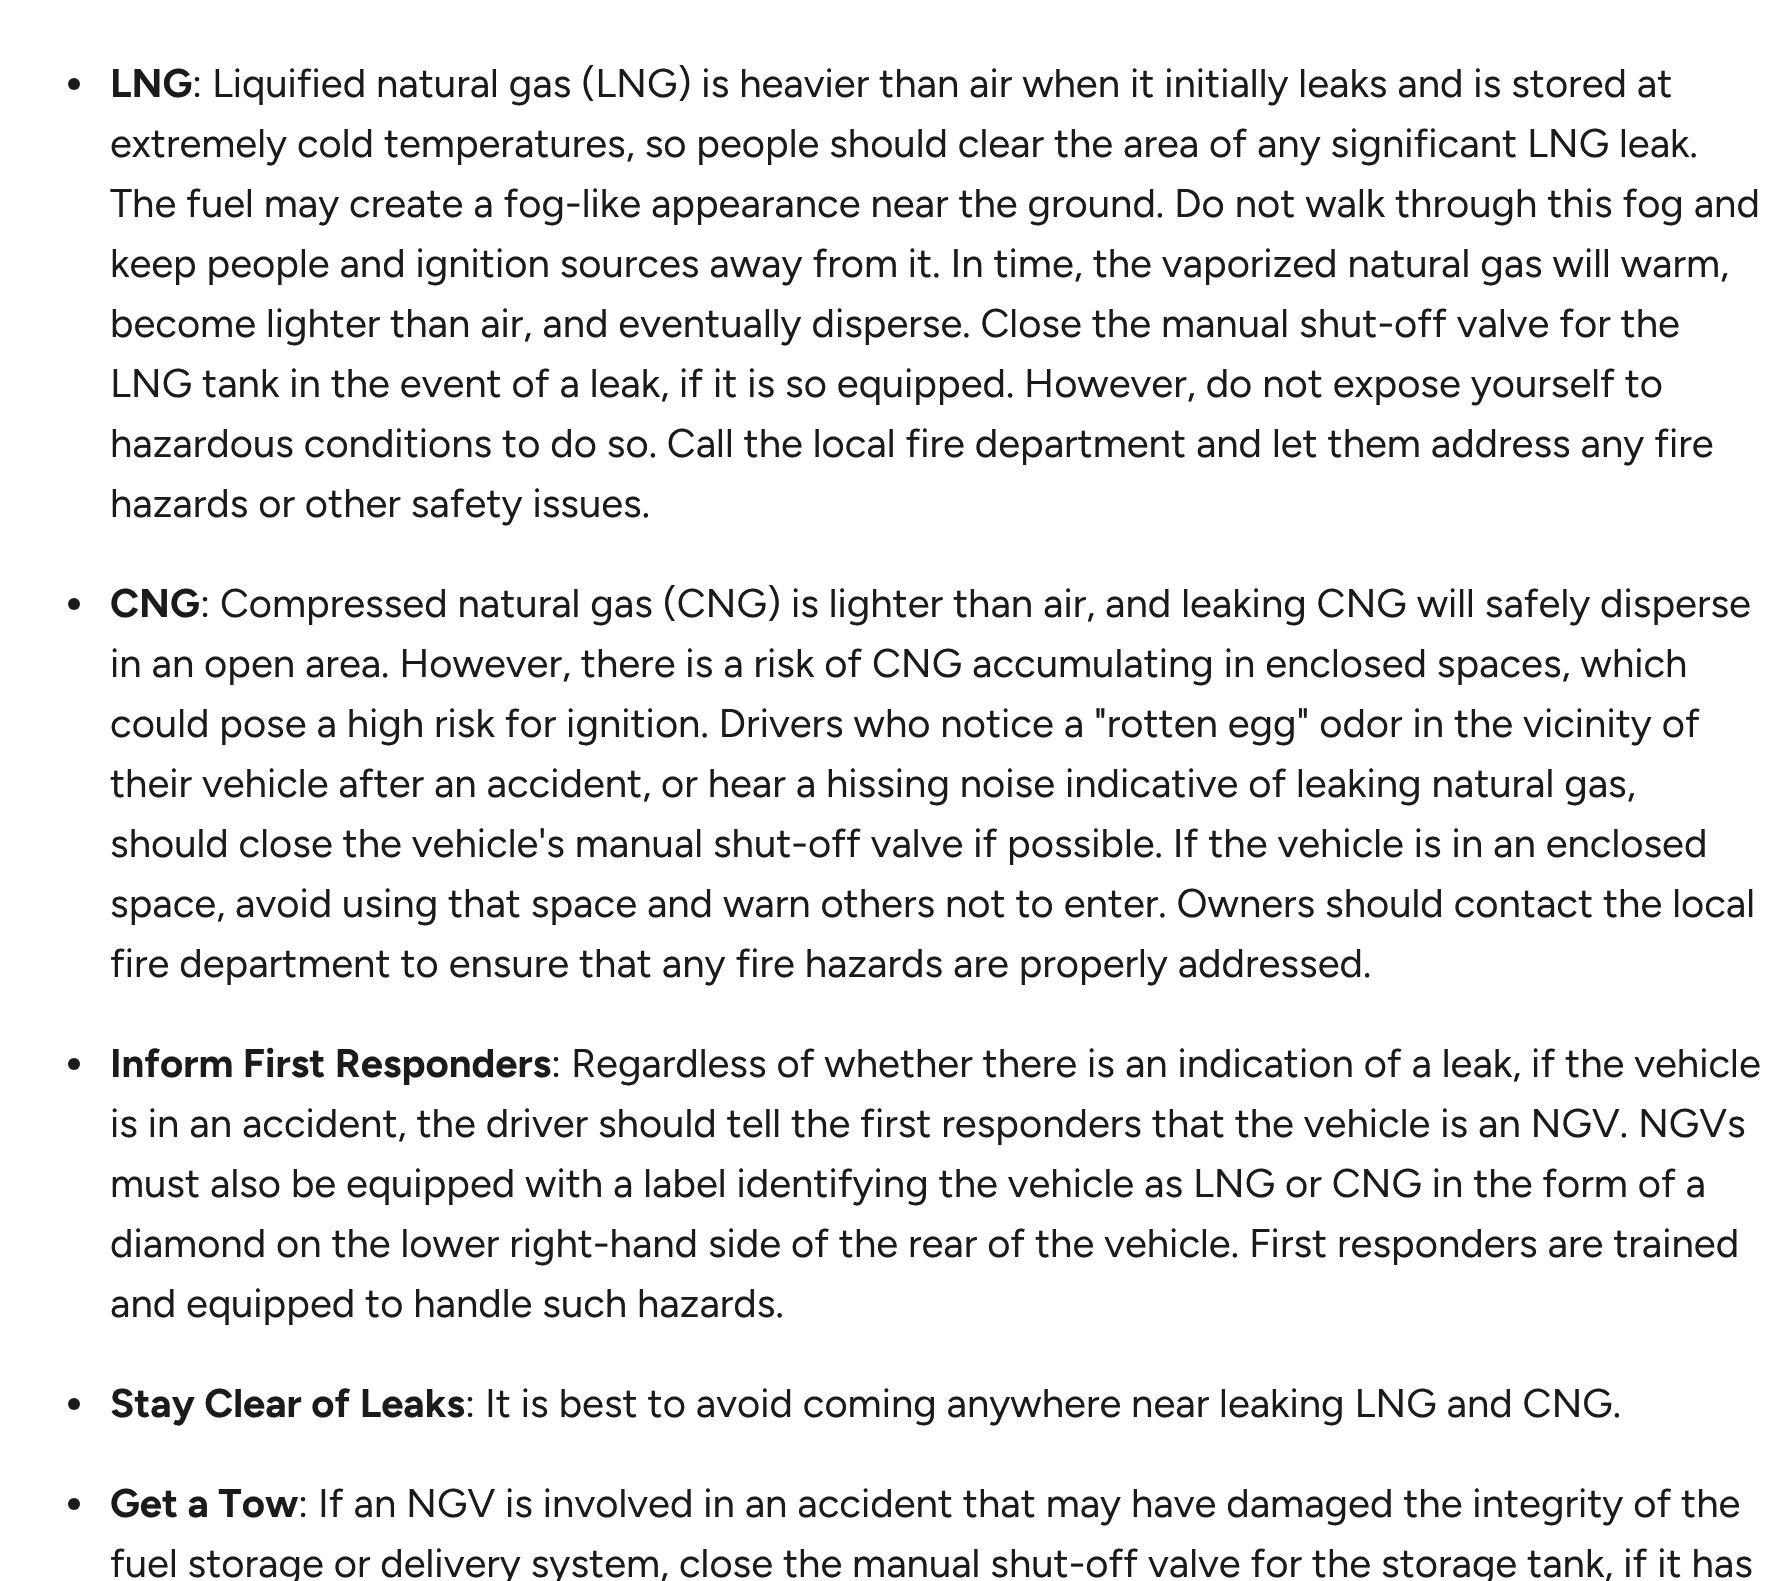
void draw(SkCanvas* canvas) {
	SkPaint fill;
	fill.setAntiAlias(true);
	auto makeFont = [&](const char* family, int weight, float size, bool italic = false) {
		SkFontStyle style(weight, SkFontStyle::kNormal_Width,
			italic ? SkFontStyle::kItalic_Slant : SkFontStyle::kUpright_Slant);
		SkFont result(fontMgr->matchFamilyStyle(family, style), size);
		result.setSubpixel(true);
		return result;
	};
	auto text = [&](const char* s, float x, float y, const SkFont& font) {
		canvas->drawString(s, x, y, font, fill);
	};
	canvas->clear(0xFFFFFFFF);
	fill.setColor(0xFF1B1B1B);
	canvas->drawCircle(74, 84, 6, fill);
	canvas->drawCircle(74, 604, 6, fill);
	canvas->drawCircle(74, 1064, 6, fill);
	canvas->drawCircle(74, 1404, 6, fill);
	canvas->drawCircle(74, 1504, 6, fill);
	auto font1 = makeFont("Figtree", 700, 40);
	text("LNG", 110, 97, font1);
	auto font2 = makeFont("Figtree", 400, 40);
	text(": Liquified natural gas (LNG) is heavier than air when it initially leaks and is stored at", 192, 97, font2);
	text("extremely cold temperatures, so people should clear the area of any significant LNG leak.", 110, 157, font2);
	text("The fuel may create a fog-like appearance near the ground. Do not walk through this fog and", 110, 217, font2);
	text("keep people and ignition sources away from it. In time, the vaporized natural gas will warm,", 110, 277, font2);
	text("become lighter than air, and eventually disperse. Close the manual shut-off valve for the", 110, 337, font2);
	text("LNG tank in the event of a leak, if it is so equipped. However, do not expose yourself to", 110, 397, font2);
	text("hazardous conditions to do so. Call the local fire department and let them address any fire", 110, 457, font2);
	text("hazards or other safety issues.", 110, 517, font2);
	text("CNG", 110, 617, font1);
	text(": Compressed natural gas (CNG) is lighter than air, and leaking CNG will safely disperse", 200, 617, font2);
	text("in an open area. However, there is a risk of CNG accumulating in enclosed spaces, which", 110, 677, font2);
	text("could pose a high risk for ignition. Drivers who notice a \"rotten egg\" odor in the vicinity of", 110, 737, font2);
	text("their vehicle after an accident, or hear a hissing noise indicative of leaking natural gas,", 110, 797, font2);
	text("should close the vehicle's manual shut-off valve if possible. If the vehicle is in an enclosed", 110, 857, font2);
	text("space, avoid using that space and warn others not to enter. Owners should contact the local", 110, 917, font2);
	text("fire department to ensure that any fire hazards are properly addressed.", 110, 977, font2);
	text("Inform First Responders", 110, 1077, font1);
	text(": Regardless of whether there is an indication of a leak, if the vehicle", 551, 1077, font2);
	text("is in an accident, the driver should tell the first responders that the vehicle is an NGV. NGVs", 110, 1137, font2);
	text("must also be equipped with a label identifying the vehicle as LNG or CNG in the form of a", 110, 1197, font2);
	text("diamond on the lower right-hand side of the rear of the vehicle. First responders are trained", 110, 1257, font2);
	text("and equipped to handle such hazards.", 110, 1317, font2);
	text("Stay Clear of Leaks", 110, 1417, font1);
	text(": It is best to avoid coming anywhere near leaking LNG and CNG.", 465, 1417, font2);
	text("Get a Tow", 110, 1517, font1);
	text(": If an NGV is involved in an accident that may have damaged the integrity of the", 298, 1517, font2);
	text("fuel storage or delivery system, close the manual shut-off valve for the storage tank, if it has", 110, 1577, font2);
}
